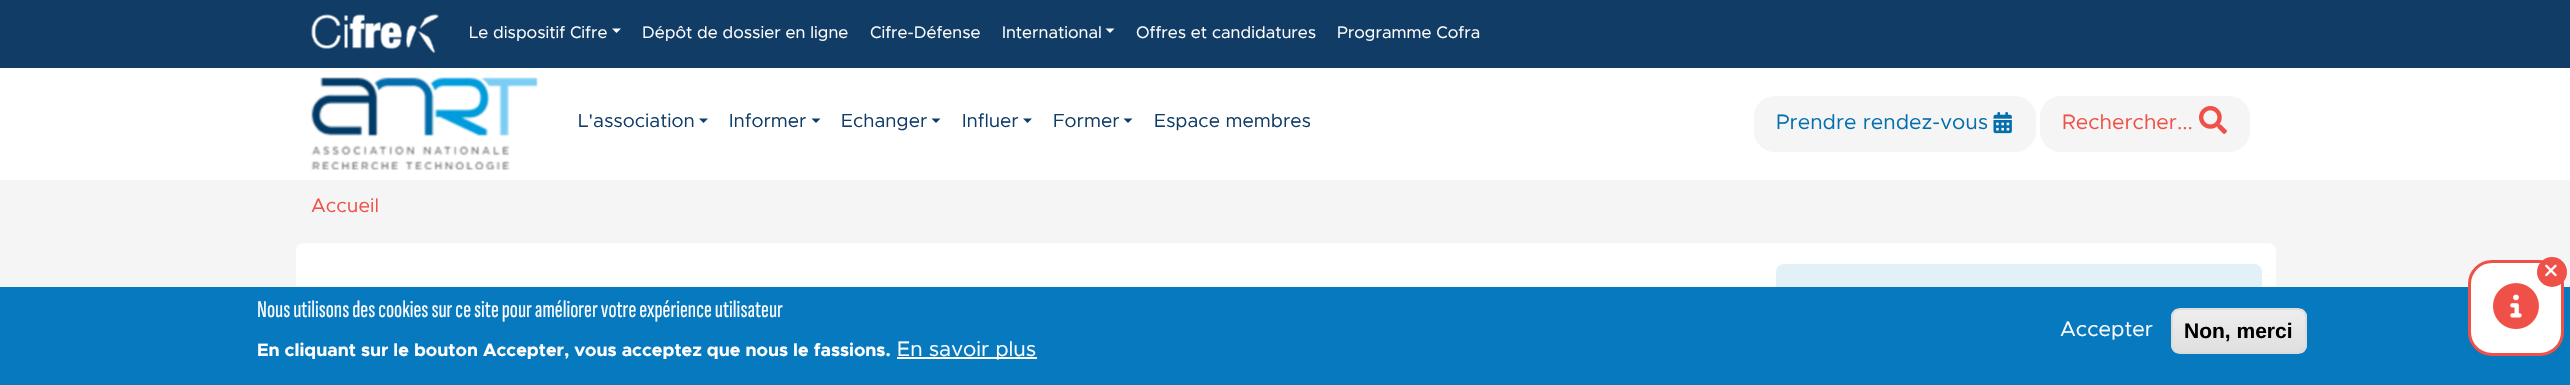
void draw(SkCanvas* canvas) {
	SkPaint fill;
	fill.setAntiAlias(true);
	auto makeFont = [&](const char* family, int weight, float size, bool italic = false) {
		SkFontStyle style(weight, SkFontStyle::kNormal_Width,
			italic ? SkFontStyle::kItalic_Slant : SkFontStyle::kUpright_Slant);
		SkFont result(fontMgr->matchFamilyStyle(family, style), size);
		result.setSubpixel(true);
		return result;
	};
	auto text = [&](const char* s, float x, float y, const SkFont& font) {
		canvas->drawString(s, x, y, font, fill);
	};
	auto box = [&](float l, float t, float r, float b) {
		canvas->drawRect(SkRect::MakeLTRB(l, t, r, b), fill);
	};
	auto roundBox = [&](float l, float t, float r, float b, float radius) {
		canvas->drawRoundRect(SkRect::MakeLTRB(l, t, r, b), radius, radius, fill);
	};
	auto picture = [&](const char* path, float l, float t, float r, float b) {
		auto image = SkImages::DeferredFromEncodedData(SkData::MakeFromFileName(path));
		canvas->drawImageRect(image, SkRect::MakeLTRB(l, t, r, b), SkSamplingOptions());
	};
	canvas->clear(0xFFF5F5F5);
	fill.setColor(0xFF113C66);
	box(0, 0, 2570, 68);
	picture("image0.png", 311, 14, 439, 53);
	fill.setColor(0xFFFFFFFF);
	canvas->drawPath(SkPathBuilder().moveTo(612, 28.5f).lineTo(621, 28.5f).lineTo(616.5f, 33).close().detach(), fill);
	canvas->drawPath(SkPathBuilder().moveTo(1105.5f, 28.5f).lineTo(1114.5f, 28.5f).lineTo(1110, 33).close().detach(), fill);
	box(0, 68, 2570, 180);
	picture("image1.png", 311, 77, 538, 170);
	fill.setColor(0xFF113C66);
	canvas->drawPath(SkPathBuilder().moveTo(699, 118.5f).lineTo(708, 118.5f).lineTo(703.5f, 123).close().detach(), fill);
	canvas->drawPath(SkPathBuilder().moveTo(811.5f, 118.5f).lineTo(820.5f, 118.5f).lineTo(816, 123).close().detach(), fill);
	canvas->drawPath(SkPathBuilder().moveTo(931.5f, 118.5f).lineTo(940.5f, 118.5f).lineTo(936, 123).close().detach(), fill);
	canvas->drawPath(SkPathBuilder().moveTo(1023, 118.5f).lineTo(1032, 118.5f).lineTo(1027.5f, 123).close().detach(), fill);
	canvas->drawPath(SkPathBuilder().moveTo(1123.5f, 118.5f).lineTo(1132.5f, 118.5f).lineTo(1128, 123).close().detach(), fill);
	fill.setColor(0xFFF5F5F5);
	roundBox(1754, 96, 2036, 152, 21);
	picture("image2.png", 1993, 112, 2012, 134);
	roundBox(2040, 96, 2250, 152, 21);
	picture("image3.png", 2199, 106, 2227, 134);
	fill.setColor(0xFFFFFFFF);
	roundBox(296, 243, 2276, 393, 8);
	fill.setColor(0xFFE2F0F7);
	roundBox(1776, 264, 2262, 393, 8);
	fill.setColor(0xFF0779BF);
	box(0, 287, 2570, 385);
	fill.setColor(0xFFFFFFFF);
	canvas->drawRoundRect(SkRect::MakeLTRB(2469.5f, 261.5f, 2562.5f, 354.5f), 22.5f, 22.5f, fill);
	fill.setStyle(SkPaint::kStroke_Style);
	fill.setStrokeWidth(3);
	fill.setColor(0xFFEF5148);
	canvas->drawRoundRect(SkRect::MakeLTRB(2469.5f, 261.5f, 2562.5f, 354.5f), 22.5f, 22.5f, fill);
	fill.setStyle(SkPaint::kFill_Style);
	canvas->drawCircle(2552, 272, 15, fill);
	picture("image4.png", 2545, 264, 2557, 277);
	picture("image5.png", 2493, 283, 2539, 329);
	fill.setColor(0xFFFFFFFF);
	box(897, 357, 1037, 359);
	canvas->save();
	canvas->clipPath(SkPathBuilder().moveTo(2180, 308).lineTo(2298, 308).cubicTo(2303, 308, 2307, 312, 2307, 317).lineTo(2307, 345).cubicTo(2307, 350, 2303, 354, 2298, 354).lineTo(2180, 354).cubicTo(2175, 354, 2171, 350, 2171, 345).lineTo(2171, 317).cubicTo(2171, 312, 2175, 308, 2180, 308).close().detach(), true);
	{
		const SkColor colors[] = {0xFFEDEDED, 0xFFDFDFDF};
		const float stops[] = {0.05f, 1};
		const SkPoint ends[] = {{2239, 309}, {2239, 353}};
		fill.setShader(SkGradientShader::MakeLinear(ends, colors, stops, 2, SkTileMode::kClamp));
		fill.setAlpha(255);
	}
	box(2171, 309, 2307, 353);
	canvas->restore();
	fill.setStyle(SkPaint::kStroke_Style);
	fill.setStrokeWidth(2);
	fill.setShader(nullptr);
	fill.setColor(0xFFDCDCDC);
	canvas->drawRoundRect(SkRect::MakeLTRB(2172, 309, 2306, 353), 8, 8, fill);
	auto font1 = makeFont("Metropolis", 400, 16.75f);
	fill.setStyle(SkPaint::kFill_Style);
	fill.setColor(0xFFFFFFFF);
	text("Le dispositif Cifre", 469, 38, font1);
	text("Dépôt de dossier en ligne", 642, 38, font1);
	text("Cifre-Défense", 870, 38, font1);
	text("International", 1002, 38, font1);
	text("Offres et candidatures", 1136, 38, font1);
	text("Programme Cofra", 1337, 38, font1);
	auto font2 = makeFont("Metropolis", 400, 19);
	fill.setColor(0xFF113C66);
	text("L'association", 578, 127, font2);
	text("Informer", 729, 127, font2);
	text("Echanger", 841, 127, font2);
	text("Influer", 962, 127, font2);
	text("Former", 1053, 127, font2);
	text("Espace membres", 1154, 127, font2);
	auto font3 = makeFont("Metropolis", 400, 21);
	fill.setColor(0xFF046FAC);
	text("Prendre rendez-vous", 1776, 129, font3);
	fill.setColor(0xFFEF5148);
	text("Rechercher...", 2062, 129, font3);
	auto font4 = makeFont("Metropolis", 400, 19.5f);
	text("Accueil", 311, 212, font4);
	auto font5 = makeFont("Sofia Sans Extra Condensed", 400, 24);
	fill.setColor(0xFFFFFFFF);
	text("Nous utilisons des cookies sur ce site pour améliorer votre expérience utilisateur", 257, 317, font5);
	auto font6 = makeFont("Metropolis", 700, 18);
	text("En cliquant sur le bouton Accepter, vous acceptez que nous le fassions.", 257, 356, font6);
	text("En savoir plus", 897, 356, font3);
	text("Accepter", 2060, 336, font3);
	auto font7 = makeFont("Liberation Sans", 700, 21);
	fill.setColor(0xFF000000);
	text("Non, merci", 2184, 338, font7);
}
